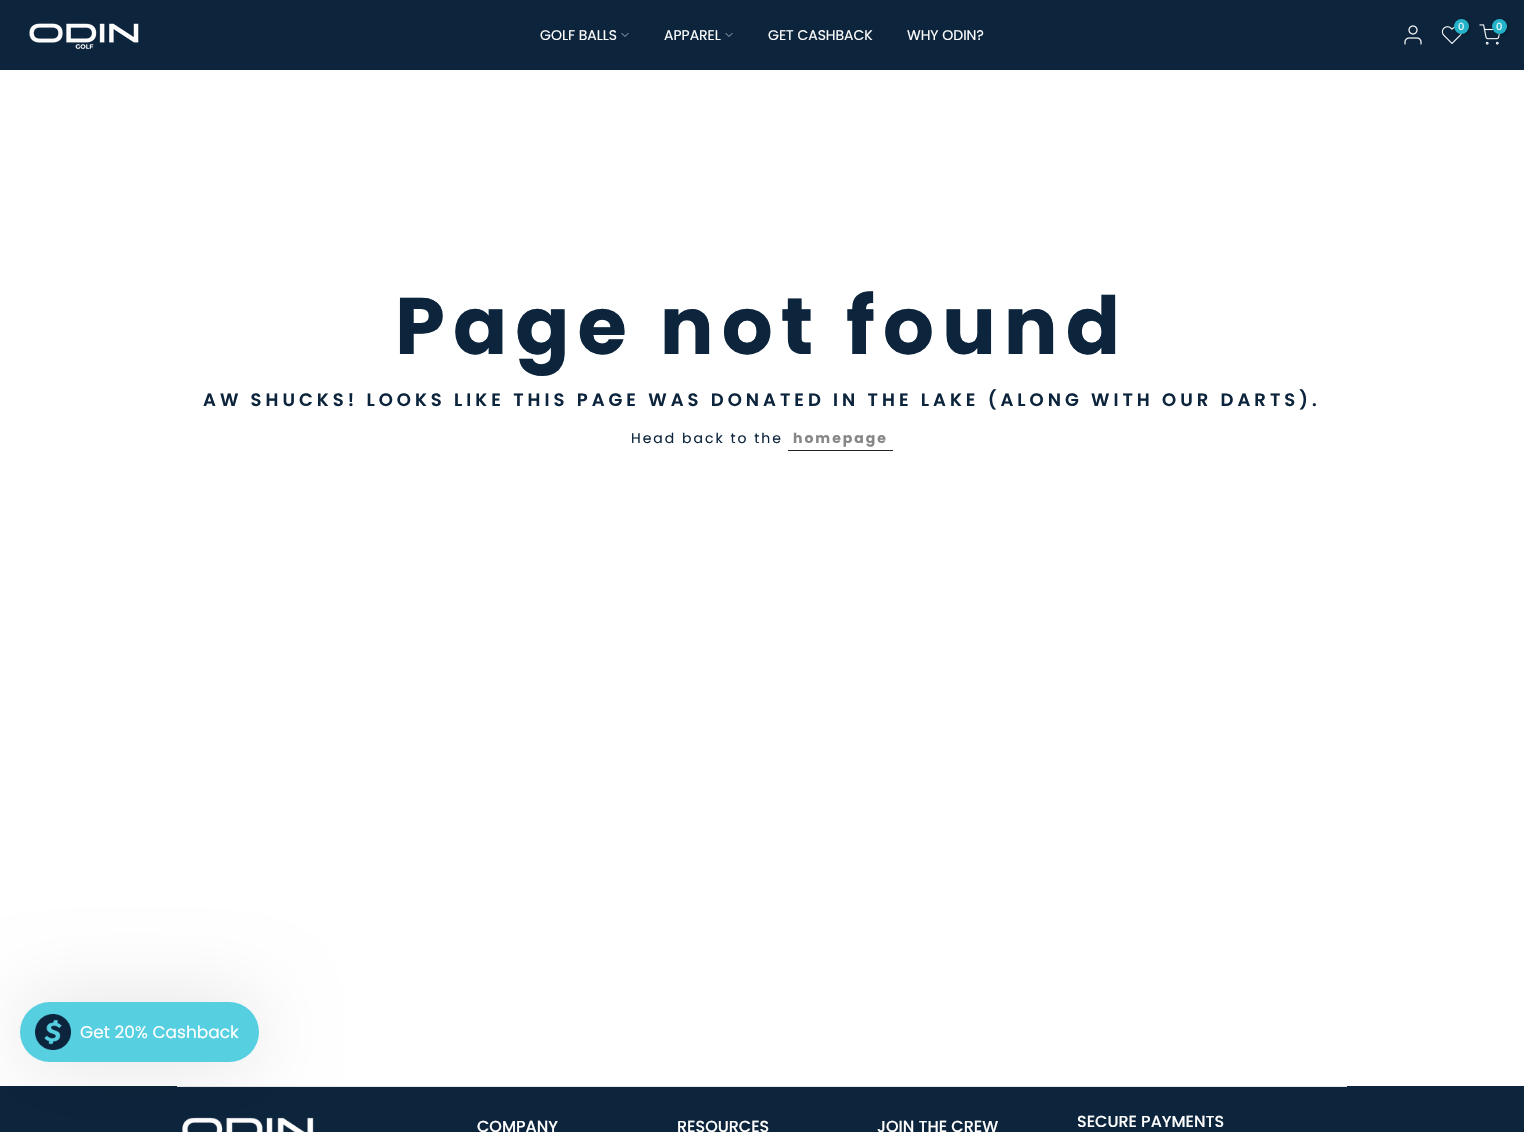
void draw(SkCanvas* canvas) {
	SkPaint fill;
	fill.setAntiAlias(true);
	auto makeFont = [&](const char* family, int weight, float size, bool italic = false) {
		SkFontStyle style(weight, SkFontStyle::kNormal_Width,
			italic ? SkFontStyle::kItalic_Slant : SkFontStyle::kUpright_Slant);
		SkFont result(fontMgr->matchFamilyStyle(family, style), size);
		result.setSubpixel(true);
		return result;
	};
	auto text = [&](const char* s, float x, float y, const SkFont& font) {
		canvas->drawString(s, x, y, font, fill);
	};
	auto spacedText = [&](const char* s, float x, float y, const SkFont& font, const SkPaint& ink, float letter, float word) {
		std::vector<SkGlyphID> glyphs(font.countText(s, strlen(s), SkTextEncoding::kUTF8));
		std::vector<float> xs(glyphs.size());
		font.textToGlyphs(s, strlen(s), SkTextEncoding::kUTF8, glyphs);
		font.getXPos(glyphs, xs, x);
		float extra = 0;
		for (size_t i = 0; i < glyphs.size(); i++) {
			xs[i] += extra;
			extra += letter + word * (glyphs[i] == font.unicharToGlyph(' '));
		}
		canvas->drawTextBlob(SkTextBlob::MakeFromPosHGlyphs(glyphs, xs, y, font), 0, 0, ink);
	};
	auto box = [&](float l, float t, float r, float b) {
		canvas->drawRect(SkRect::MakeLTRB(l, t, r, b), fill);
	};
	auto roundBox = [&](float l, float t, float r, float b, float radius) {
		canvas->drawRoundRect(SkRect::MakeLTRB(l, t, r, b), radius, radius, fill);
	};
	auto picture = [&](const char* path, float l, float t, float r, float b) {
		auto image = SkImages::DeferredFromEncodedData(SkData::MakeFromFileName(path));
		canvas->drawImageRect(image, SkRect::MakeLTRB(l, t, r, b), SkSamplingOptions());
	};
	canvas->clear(0xFFFFFFFF);
	fill.setColor(0xFF0C243C);
	box(0, 1086, 1524, 1132);
	fill.setColor(0xFFE6E6E6);
	box(177, 1086, 1347, 1087);
	picture("image5.png", 182, 1117, 314, 1132);
	fill.setColor(0x1F000000);
	fill.setMaskFilter(SkMaskFilter::MakeBlur(kNormal_SkBlurStyle, 40));
	canvas->drawRoundRect(SkRect::MakeLTRB(20, 1002, 259, 1062), 30, 30, fill);
	fill.setMaskFilter(nullptr);
	fill.setColor(0xFF56CFE1);
	roundBox(20, 1002, 259, 1062, 30);
	picture("image0.png", 35, 1014, 71, 1050);
	fill.setColor(0xFF0C243C);
	box(0, 0, 1524, 70);
	picture("image1.png", 29, 23, 139, 49);
	fill.setStyle(SkPaint::kStroke_Style);
	fill.setStrokeWidth(0.8f);
	fill.setStrokeCap(SkPaint::kSquare_Cap);
	fill.setColor(0xFFCED3D8);
	canvas->drawPath(SkPathBuilder().moveTo(628, 33.5f).lineTo(625, 36.5f).lineTo(622, 33.5f).detach(), fill);
	canvas->drawPath(SkPathBuilder().moveTo(732, 33.5f).lineTo(729, 36.5f).lineTo(726, 33.5f).detach(), fill);
	picture("image2.png", 1404, 25, 1422, 45);
	picture("image3.png", 1441, 26, 1462, 44);
	fill.setStyle(SkPaint::kFill_Style);
	fill.setColor(0x4D000000);
	fill.setMaskFilter(SkMaskFilter::MakeBlur(kNormal_SkBlurStyle, 1.5f));
	canvas->drawRoundRect(SkRect::MakeLTRB(1455, 20, 1470, 35), 7.5f, 7.5f, fill);
	fill.setMaskFilter(nullptr);
	fill.setColor(0xFF23B2C7);
	canvas->drawCircle(1461.5f, 26.5f, 7.5f, fill);
	picture("image4.png", 1479, 24, 1500, 45);
	fill.setColor(0x4D000000);
	fill.setMaskFilter(SkMaskFilter::MakeBlur(kNormal_SkBlurStyle, 1.5f));
	canvas->drawRoundRect(SkRect::MakeLTRB(1493, 20, 1508, 35), 7.5f, 7.5f, fill);
	fill.setMaskFilter(nullptr);
	fill.setColor(0xFF23B2C7);
	canvas->drawCircle(1499.5f, 26.5f, 7.5f, fill);
	fill.setColor(0xFF222222);
	box(788, 450, 893, 451);
	auto font1 = makeFont("Poppins", 400, 17);
	fill.setColor(0xFFFFFFFF);
	text("Get 20% Cashback", 80, 1038, font1);
	auto font2 = makeFont("Poppins", 400, 14);
	text("GOLF BALLS", 540, 40, font2);
	text("APPAREL", 664, 40, font2);
	text("GET CASHBACK", 768, 40, font2);
	text("WHY ODIN?", 907, 40, font2);
	auto font3 = makeFont("Poppins", 400, 10);
	text("0", 1458, 30, font3);
	text("0", 1496, 30, font3);
	auto font4 = makeFont("Poppins", 700, 80);
	fill.setColor(0xFF0C243C);
	spacedText("Page not found", 395, 354, font4, fill, 8, 0);
	auto font5 = makeFont("Poppins", 600, 18);
	spacedText("AW SHUCKS! LOOKS LIKE THIS PAGE WAS DONATED IN THE LAKE (ALONG WITH OUR DARTS).", 203, 406, font5, fill, 4, 0);
	spacedText("Head back to the", 631, 443, font2, fill, 2, 0);
	auto font6 = makeFont("Poppins", 700, 14);
	fill.setColor(0xFF878787);
	spacedText("homepage", 793, 443, font6, fill, 2, 0);
	auto font7 = makeFont("Poppins", 500, 16);
	fill.setColor(0xFFFFFFFF);
	text("COMPANY", 477, 1132, font7);
	text("RESOURCES", 677, 1132, font7);
	text("JOIN THE CREW", 877, 1132, font7);
	text("SECURE PAYMENTS", 1077, 1127, font7);
}
